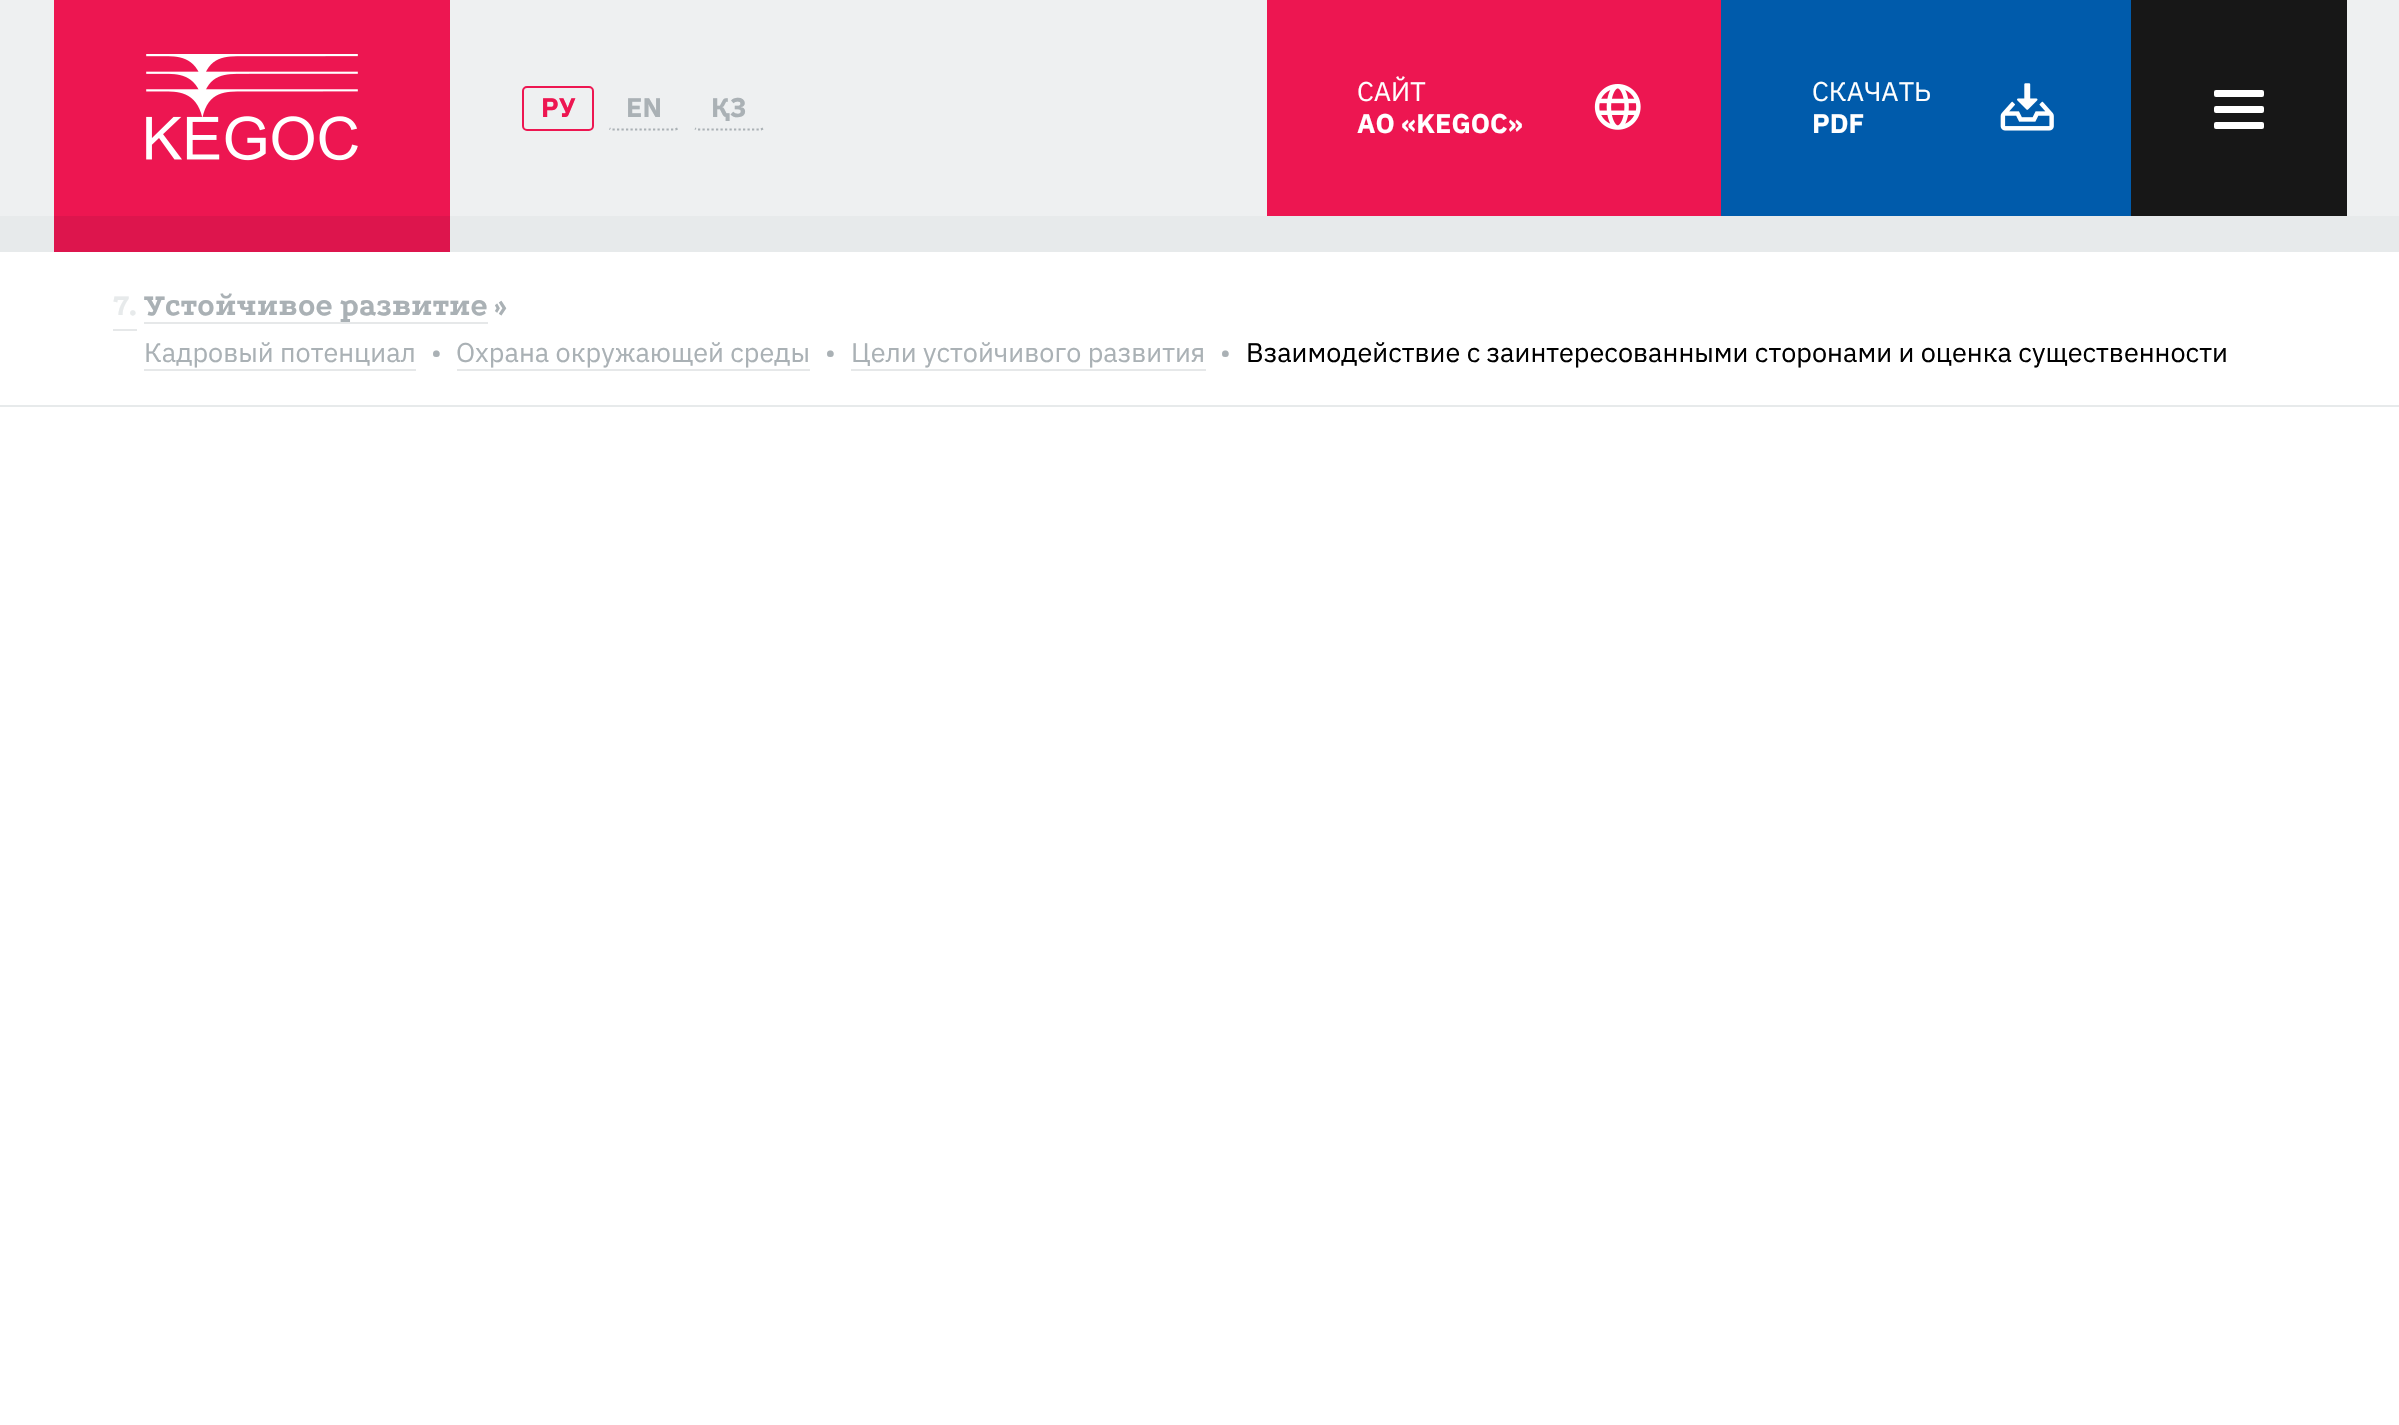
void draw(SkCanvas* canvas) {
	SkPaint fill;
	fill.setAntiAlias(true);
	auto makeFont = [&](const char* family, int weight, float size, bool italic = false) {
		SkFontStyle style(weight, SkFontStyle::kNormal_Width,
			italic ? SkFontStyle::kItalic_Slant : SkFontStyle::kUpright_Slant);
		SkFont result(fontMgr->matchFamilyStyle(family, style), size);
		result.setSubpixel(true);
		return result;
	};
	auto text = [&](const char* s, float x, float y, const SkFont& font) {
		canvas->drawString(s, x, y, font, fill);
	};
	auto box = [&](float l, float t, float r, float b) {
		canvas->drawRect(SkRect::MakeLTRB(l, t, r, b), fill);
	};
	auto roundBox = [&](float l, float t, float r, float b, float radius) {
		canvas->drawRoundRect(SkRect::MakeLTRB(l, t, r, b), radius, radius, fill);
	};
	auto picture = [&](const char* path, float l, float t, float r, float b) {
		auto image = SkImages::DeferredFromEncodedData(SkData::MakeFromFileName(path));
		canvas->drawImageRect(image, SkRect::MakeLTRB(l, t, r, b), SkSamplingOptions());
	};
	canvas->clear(0xFFFFFFFF);
	fill.setColor(0xFFEEF0F1);
	box(0, 0, 2399, 216);
	fill.setColor(0xFFE7EAEB);
	box(0, 216, 2399, 252);
	fill.setColor(0xFFDD154D);
	box(54, 216, 450, 252);
	fill.setColor(0xFFED1651);
	box(54, 0, 450, 216);
	picture("image0.png", 146, 54, 358, 161);
	fill.setStyle(SkPaint::kStroke_Style);
	fill.setStrokeWidth(2);
	canvas->drawRoundRect(SkRect::MakeLTRB(523, 87, 593, 130), 4, 4, fill);
	fill.setStrokeWidth(2.2f);
	fill.setColor(0xFFAAB1B5);
	fill.setPathEffect(SkDashPathEffect::Make({{2.25f, 2.25f}}, 0));
	canvas->drawPath(SkPathBuilder().moveTo(677.5f, 128.5f).lineTo(675.5f, 129.5f).lineTo(611.5f, 129.5f).lineTo(609.5f, 128.5f).detach(), fill);
	fill.setPathEffect(nullptr);
	fill.setPathEffect(SkDashPathEffect::Make({{2.25f, 2.25f}}, 0));
	canvas->drawPath(SkPathBuilder().moveTo(763, 128.5f).lineTo(761, 129.5f).lineTo(697, 129.5f).lineTo(695, 128.5f).detach(), fill);
	fill.setPathEffect(nullptr);
	fill.setStyle(SkPaint::kFill_Style);
	fill.setColor(0xFFED1651);
	box(1267, 0, 1721, 216);
	picture("image1.png", 1594, 84, 1641, 130);
	fill.setColor(0xFF005BAB);
	box(1721, 0, 2131, 216);
	picture("image2.png", 2000, 83, 2054, 131);
	fill.setColor(0xFF171717);
	box(2131, 0, 2347, 216);
	fill.setColor(0xFFFFFFFF);
	roundBox(2214, 90, 2264, 97, 2);
	roundBox(2214, 106, 2264, 113, 2);
	roundBox(2214, 122, 2264, 129, 2);
	fill.setColor(0xFFE7EAEB);
	box(0, 405, 2399, 407);
	fill.setColor(0xFFE6E8E9);
	box(113, 329, 137, 331);
	box(144, 322, 488, 324);
	box(144, 369, 416, 371);
	box(457, 369, 810, 371);
	box(851, 369, 1206, 371);
	auto font1 = makeFont("IBM Plex Sans", 700, 27);
	fill.setColor(0xFFED1651);
	text("РУ", 541, 117, font1);
	fill.setColor(0xFFAAB1B5);
	text("EN", 626, 117, font1);
	text("ҚЗ", 711, 117, font1);
	auto font2 = makeFont("IBM Plex Sans", 400, 27);
	fill.setColor(0xFFFFFFFF);
	text("САЙТ", 1357, 101, font2);
	text("АО «KEGOC»", 1357, 133, font1);
	text("СКАЧАТЬ", 1812, 101, font2);
	text("PDF", 1812, 133, font1);
	auto font3 = makeFont("Podkova", 800, 31.5f);
	fill.setColor(0xFFE7EAEB);
	text("7.", 113, 315, font3);
	fill.setColor(0xFFAAB1B5);
	text("Устойчивое развитие »", 144, 315, font3);
	text("Кадровый потенциал", 144, 362, font2);
	text("•", 431, 362, font2);
	text("Охрана окружающей среды", 456, 362, font2);
	text("•", 825, 362, font2);
	text("Цели устойчивого развития", 851, 362, font2);
	text("•", 1220, 362, font2);
	fill.setColor(0xFF000000);
	text("Взаимодействие с заинтересованными сторонами и оценка существенности", 1246, 362, font2);
}
